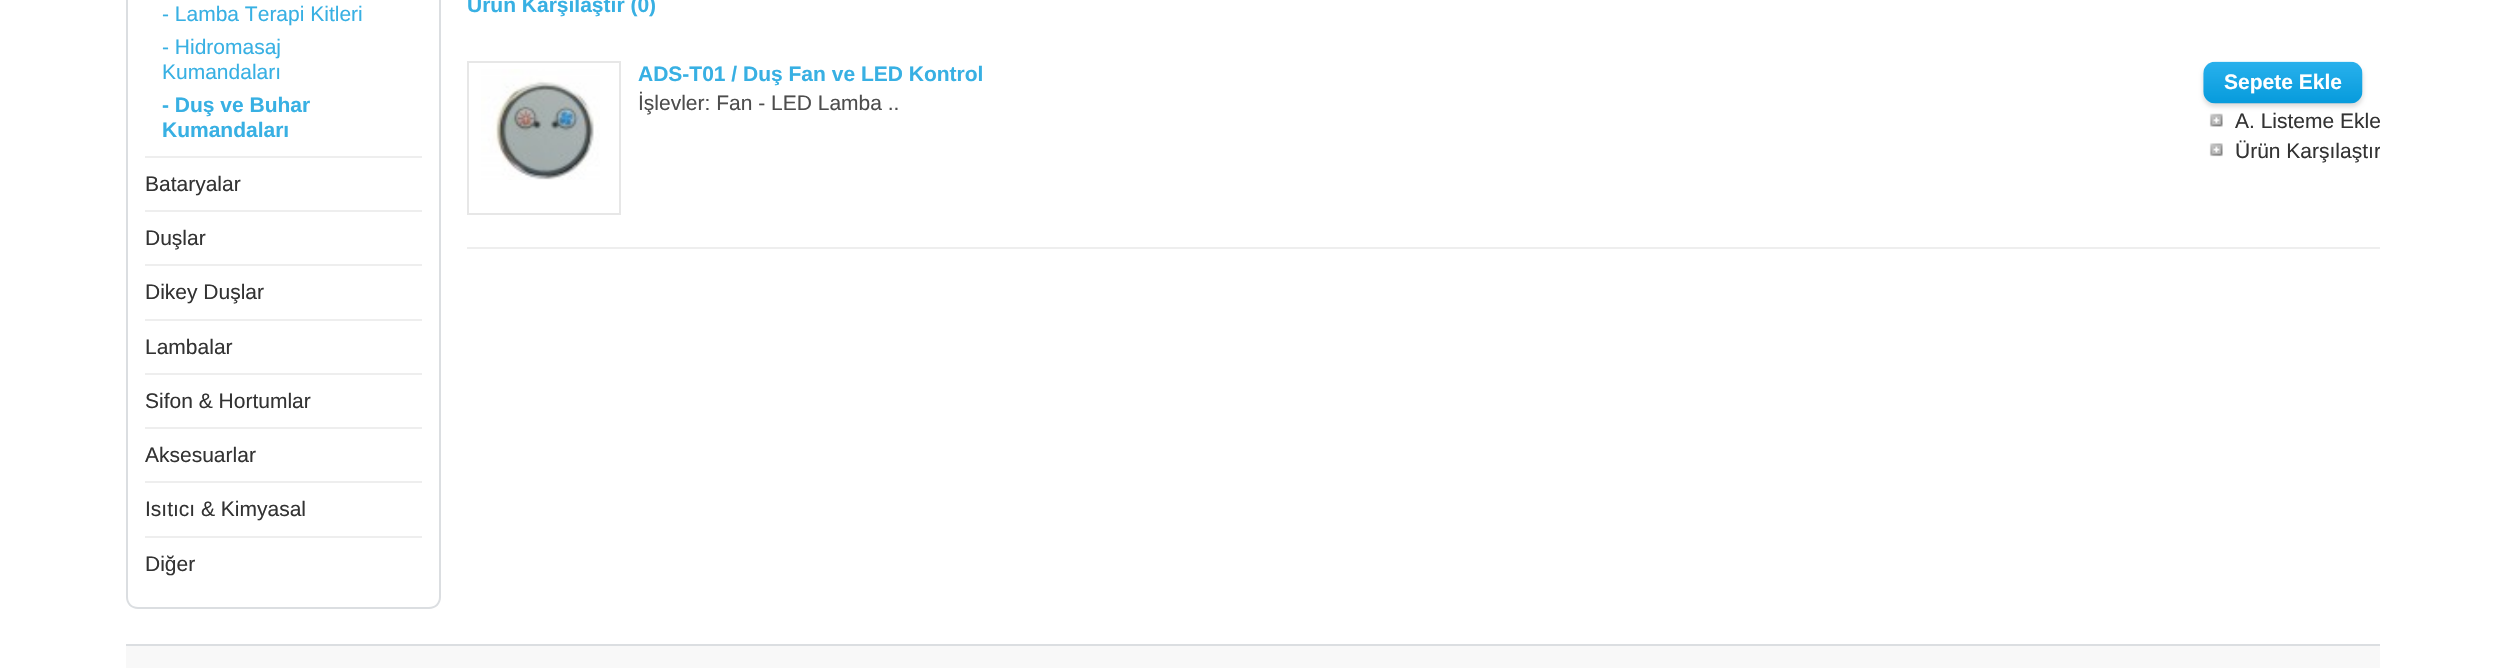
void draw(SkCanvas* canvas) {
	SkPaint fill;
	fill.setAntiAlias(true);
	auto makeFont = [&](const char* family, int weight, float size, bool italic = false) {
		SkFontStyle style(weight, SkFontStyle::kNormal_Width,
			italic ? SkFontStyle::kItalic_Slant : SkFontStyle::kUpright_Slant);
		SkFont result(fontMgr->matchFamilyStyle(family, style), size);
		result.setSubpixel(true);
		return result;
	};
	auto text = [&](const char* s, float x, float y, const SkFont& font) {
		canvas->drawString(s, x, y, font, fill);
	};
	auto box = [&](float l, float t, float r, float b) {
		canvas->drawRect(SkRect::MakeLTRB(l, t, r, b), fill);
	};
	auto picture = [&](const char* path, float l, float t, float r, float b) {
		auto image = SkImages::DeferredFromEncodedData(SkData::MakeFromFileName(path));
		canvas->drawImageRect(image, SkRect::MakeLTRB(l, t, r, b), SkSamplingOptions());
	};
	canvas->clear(0xFFFFFFFF);
	fill.setColor(0xFFDBDEE1);
	canvas->drawPath(SkPathBuilder(SkPathFillType::kEvenOdd).moveTo(126, -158).lineTo(441, -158).lineTo(441, 597).cubicTo(441, 604, 436, 609, 429, 609).lineTo(138, 609).cubicTo(131, 609, 126, 604, 126, 597).close().moveTo(128, -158).lineTo(439, -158).lineTo(439, 597).cubicTo(439, 603, 435, 607, 429, 607).lineTo(138, 607).cubicTo(132, 607, 128, 603, 128, 597).close().detach(), fill);
	fill.setColor(0xFFEEEEEE);
	box(145, 156, 422, 158);
	box(145, 210, 422, 212);
	box(145, 264, 422, 266);
	box(145, 319, 422, 321);
	box(145, 373, 422, 375);
	box(145, 427, 422, 429);
	box(145, 481, 422, 483);
	box(145, 536, 422, 538);
	fill.setStyle(SkPaint::kStroke_Style);
	fill.setStrokeWidth(2);
	fill.setColor(0xFFE7E7E7);
	canvas->drawRect(SkRect::MakeLTRB(468, 62, 620, 214), fill);
	picture("image0.png", 481, 69, 600, 180);
	picture("image2.png", 2209, 113, 2223, 127);
	fill.setStyle(SkPaint::kFill_Style);
	fill.setColor(0xFFDDDDDD);
	fill.setMaskFilter(SkMaskFilter::MakeBlur(kNormal_SkBlurStyle, 2));
	canvas->drawRoundRect(SkRect::MakeLTRB(2203, 65, 2363, 107), 12, 12, fill);
	fill.setMaskFilter(nullptr);
	picture("image1.png", 2203, 61, 2363, 104);
	picture("image3.png", 2209, 143, 2223, 157);
	fill.setColor(0xFFEEEEEE);
	box(467, 247, 2380, 249);
	fill.setColor(0xFFF8F8F8);
	box(126, 646, 2380, 668);
	fill.setColor(0xFFDBDEE1);
	box(126, 644, 2380, 646);
	auto font1 = makeFont("Liberation Sans", 400, 21);
	fill.setColor(0xFF38B0E3);
	text("- Lamba Terapi Kitleri", 162, 21, font1);
	text("- Hidromasaj", 162, 54, font1);
	text("Kumandaları", 162, 79, font1);
	auto font2 = makeFont("Liberation Sans", 700, 21);
	text("- Duş ve Buhar", 162, 112, font2);
	text("Kumandaları", 162, 137, font2);
	fill.setColor(0xFF333333);
	text("Bataryalar", 145, 191, font1);
	text("Duşlar", 145, 245, font1);
	text("Dikey Duşlar", 145, 299, font1);
	text("Lambalar", 145, 354, font1);
	text("Sifon & Hortumlar", 145, 408, font1);
	text("Aksesuarlar", 145, 462, font1);
	text("Isıtıcı & Kimyasal", 145, 516, font1);
	text("Diğer", 145, 571, font1);
	fill.setColor(0xFF38B0E3);
	text("Ürün Karşılaştır (0)", 467, 12, font2);
	text("ADS-T01 / Duş Fan ve LED Kontrol", 638, 81, font2);
	fill.setColor(0xFF4D4D4D);
	text("İşlevler: Fan - LED Lamba ..", 638, 110, font1);
	fill.setColor(0xFFFFFFFF);
	text("Sepete Ekle", 2224, 89, font2);
	fill.setColor(0xFF333333);
	text("A. Listeme Ekle", 2235, 128, font1);
	canvas->save();
	canvas->clipRect(SkRect::MakeLTRB(467, 61, 2380, 221));
	text("Ürün Karşılaştır", 2235, 158, font1);
	canvas->restore();
}
